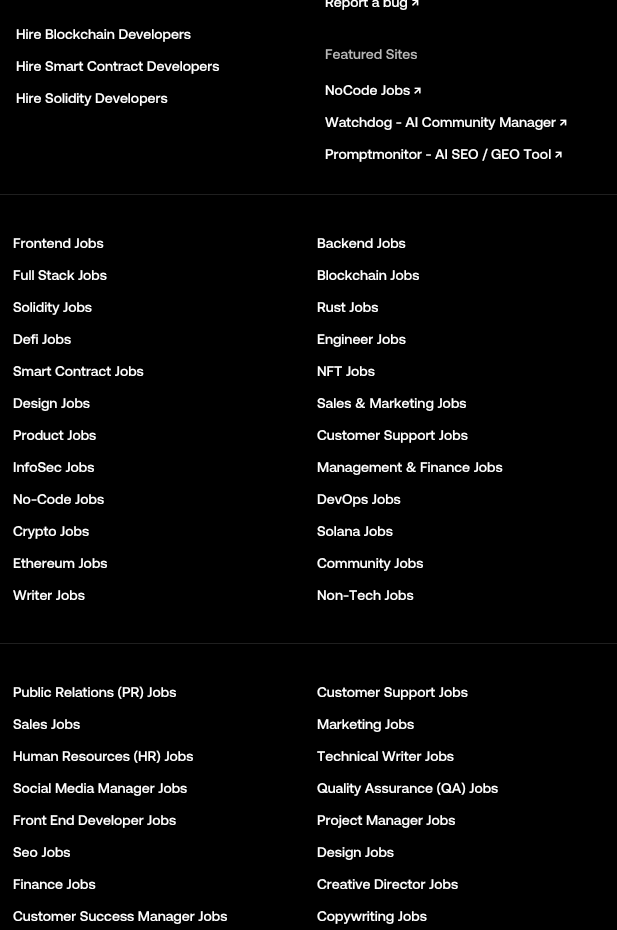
void draw(SkCanvas* canvas) {
	SkPaint fill;
	fill.setAntiAlias(true);
	auto makeFont = [&](const char* family, int weight, float size, bool italic = false) {
		SkFontStyle style(weight, SkFontStyle::kNormal_Width,
			italic ? SkFontStyle::kItalic_Slant : SkFontStyle::kUpright_Slant);
		SkFont result(fontMgr->matchFamilyStyle(family, style), size);
		result.setSubpixel(true);
		return result;
	};
	auto text = [&](const char* s, float x, float y, const SkFont& font) {
		canvas->drawString(s, x, y, font, fill);
	};
	auto box = [&](float l, float t, float r, float b) {
		canvas->drawRect(SkRect::MakeLTRB(l, t, r, b), fill);
	};
	canvas->clear(0xFF000000);
	fill.setColor(0xFF1F1F1F);
	box(0, 194, 617, 195);
	box(0, 643, 617, 644);
	auto font1 = makeFont("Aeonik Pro", 500, 14);
	fill.setColor(0xFFFFFFFF);
	text("Hire Blockchain Developers", 16, 39, font1);
	text("Hire Smart Contract Developers", 16, 71, font1);
	text("Hire Solidity Developers", 16, 103, font1);
	text("Report a bug ↗", 325, 7, font1);
	fill.setColor(0xFFB8B8B8);
	text("Featured Sites", 325, 59, font1);
	fill.setColor(0xFFFFFFFF);
	text("NoCode Jobs ↗", 325, 95, font1);
	text("Watchdog - AI Community Manager ↗", 325, 127, font1);
	text("Promptmonitor - AI SEO / GEO Tool ↗", 325, 159, font1);
	text("Frontend Jobs", 13, 248, font1);
	text("Backend Jobs", 317, 248, font1);
	text("Full Stack Jobs", 13, 280, font1);
	text("Blockchain Jobs", 317, 280, font1);
	text("Solidity Jobs", 13, 312, font1);
	text("Rust Jobs", 317, 312, font1);
	text("Defi Jobs", 13, 344, font1);
	text("Engineer Jobs", 317, 344, font1);
	text("Smart Contract Jobs", 13, 376, font1);
	text("NFT Jobs", 317, 376, font1);
	text("Design Jobs", 13, 408, font1);
	text("Sales & Marketing Jobs", 317, 408, font1);
	text("Product Jobs", 13, 440, font1);
	text("Customer Support Jobs", 317, 440, font1);
	text("InfoSec Jobs", 13, 472, font1);
	text("Management & Finance Jobs", 317, 472, font1);
	text("No-Code Jobs", 13, 504, font1);
	text("DevOps Jobs", 317, 504, font1);
	text("Crypto Jobs", 13, 536, font1);
	text("Solana Jobs", 317, 536, font1);
	text("Ethereum Jobs", 13, 568, font1);
	text("Community Jobs", 317, 568, font1);
	text("Writer Jobs", 13, 600, font1);
	text("Non-Tech Jobs", 317, 600, font1);
	text("Public Relations (PR) Jobs", 13, 697, font1);
	text("Customer Support Jobs", 317, 697, font1);
	text("Sales Jobs", 13, 729, font1);
	text("Marketing Jobs", 317, 729, font1);
	text("Human Resources (HR) Jobs", 13, 761, font1);
	text("Technical Writer Jobs", 317, 761, font1);
	text("Social Media Manager Jobs", 13, 793, font1);
	text("Quality Assurance (QA) Jobs", 317, 793, font1);
	text("Front End Developer Jobs", 13, 825, font1);
	text("Project Manager Jobs", 317, 825, font1);
	text("Seo Jobs", 13, 857, font1);
	text("Design Jobs", 317, 857, font1);
	text("Finance Jobs", 13, 889, font1);
	text("Creative Director Jobs", 317, 889, font1);
	text("Customer Success Manager Jobs", 13, 921, font1);
	text("Copywriting Jobs", 317, 921, font1);
}
